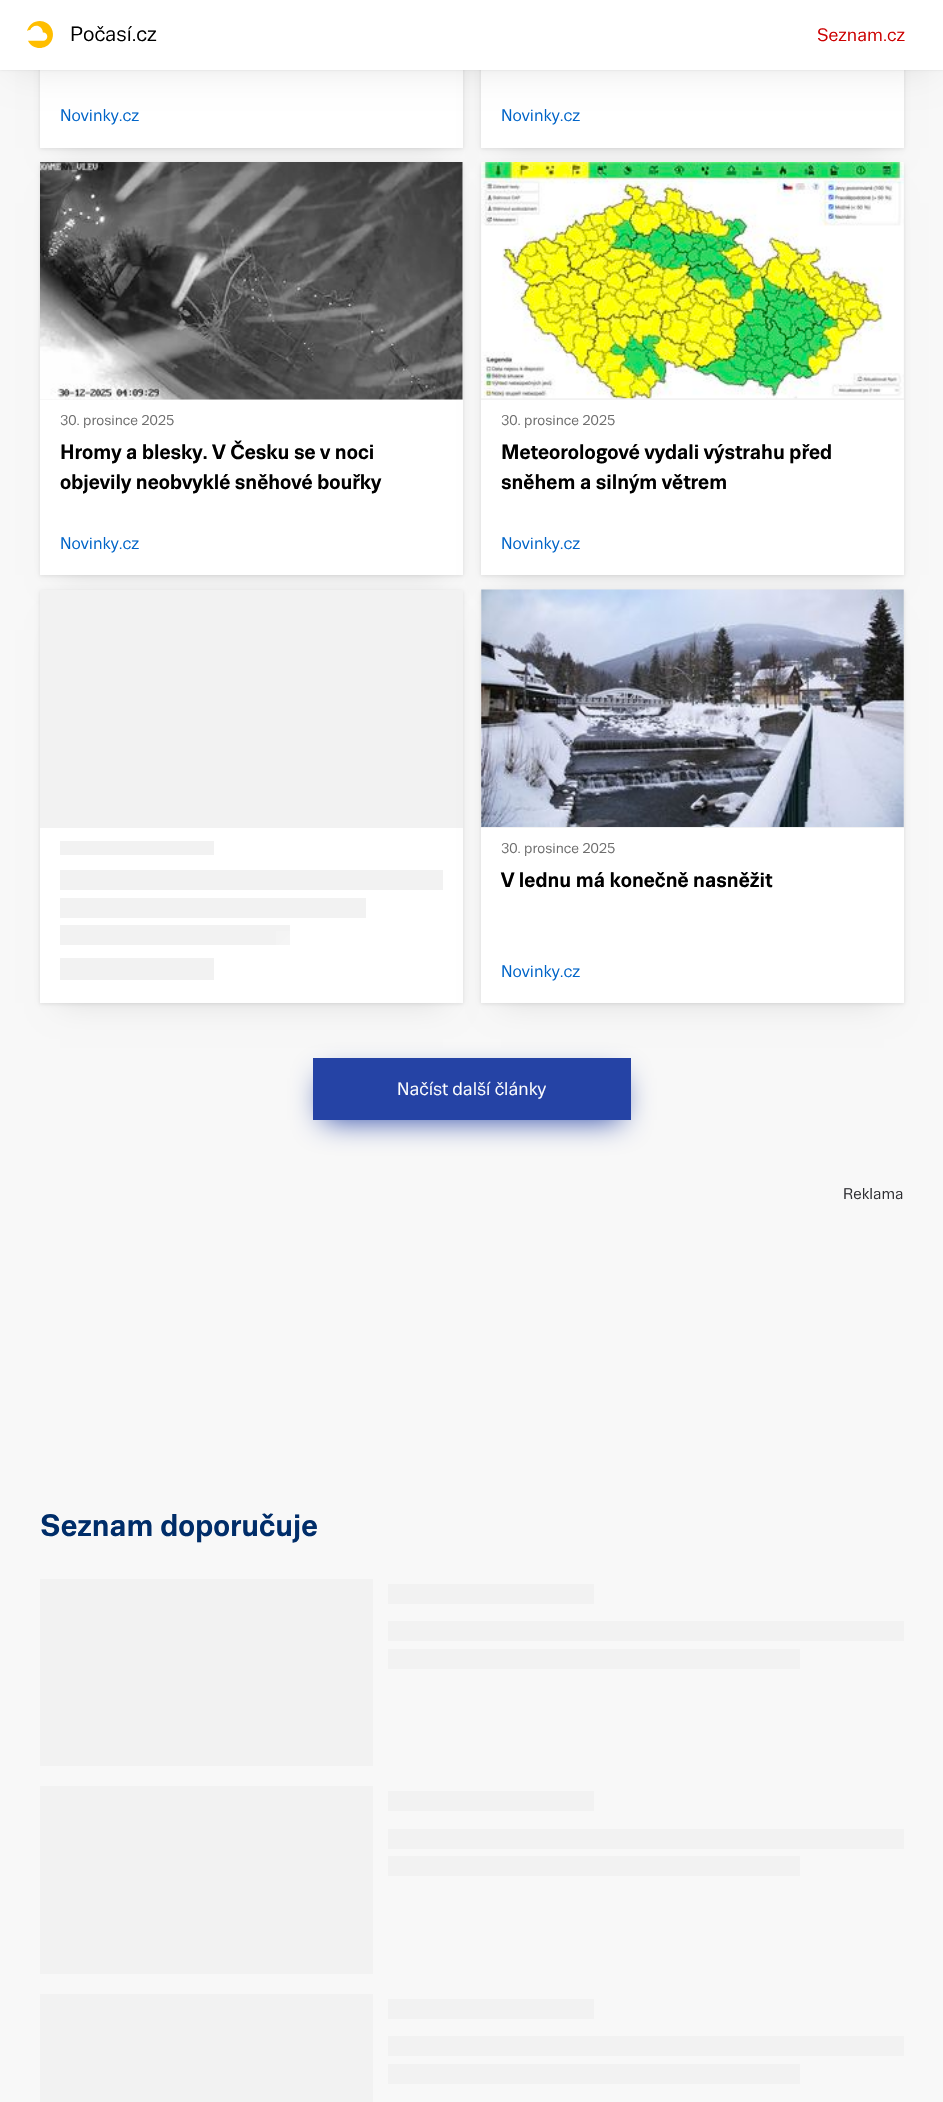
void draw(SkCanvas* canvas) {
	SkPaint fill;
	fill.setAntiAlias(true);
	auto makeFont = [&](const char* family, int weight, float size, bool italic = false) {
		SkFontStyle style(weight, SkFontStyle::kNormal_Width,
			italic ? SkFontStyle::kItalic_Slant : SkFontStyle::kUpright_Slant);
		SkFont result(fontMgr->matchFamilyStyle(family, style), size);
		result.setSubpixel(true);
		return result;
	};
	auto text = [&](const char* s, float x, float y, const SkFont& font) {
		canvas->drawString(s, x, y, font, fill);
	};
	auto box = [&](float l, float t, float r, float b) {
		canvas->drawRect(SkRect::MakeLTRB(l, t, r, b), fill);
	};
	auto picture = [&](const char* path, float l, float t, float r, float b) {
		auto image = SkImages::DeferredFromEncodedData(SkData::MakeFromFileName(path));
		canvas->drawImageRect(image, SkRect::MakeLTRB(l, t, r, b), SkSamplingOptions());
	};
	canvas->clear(0xFFF8F8F8);
	fill.setColor(0x1A000000);
	fill.setMaskFilter(SkMaskFilter::MakeBlur(kNormal_SkBlurStyle, 15));
	canvas->drawRect(SkRect::MakeLTRB(60, -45, 443, 148), fill);
	fill.setMaskFilter(nullptr);
	fill.setMaskFilter(SkMaskFilter::MakeBlur(kNormal_SkBlurStyle, 2));
	canvas->drawRect(SkRect::MakeLTRB(40, -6, 463, 149), fill);
	fill.setMaskFilter(nullptr);
	fill.setColor(0xFFFFFFFF);
	box(40, 70, 463, 148);
	fill.setColor(0x1A000000);
	fill.setMaskFilter(SkMaskFilter::MakeBlur(kNormal_SkBlurStyle, 15));
	canvas->drawRect(SkRect::MakeLTRB(501, -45, 884, 148), fill);
	fill.setMaskFilter(nullptr);
	fill.setMaskFilter(SkMaskFilter::MakeBlur(kNormal_SkBlurStyle, 2));
	canvas->drawRect(SkRect::MakeLTRB(481, -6, 904, 149), fill);
	fill.setMaskFilter(nullptr);
	fill.setColor(0xFFFFFFFF);
	box(481, 70, 904, 148);
	fill.setColor(0x1F000000);
	fill.setMaskFilter(SkMaskFilter::MakeBlur(kNormal_SkBlurStyle, 19));
	canvas->drawRect(SkRect::MakeLTRB(15, 25, 929, 65), fill);
	fill.setMaskFilter(nullptr);
	fill.setColor(0x1A000000);
	fill.setMaskFilter(SkMaskFilter::MakeBlur(kNormal_SkBlurStyle, 1));
	canvas->drawRect(SkRect::MakeLTRB(0, 0, 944, 70), fill);
	fill.setMaskFilter(nullptr);
	fill.setColor(0xFFFFFFFF);
	box(0, 0, 943, 70);
	picture("image0.png", 27, 21, 53, 48);
	fill.setColor(0x1A000000);
	fill.setMaskFilter(SkMaskFilter::MakeBlur(kNormal_SkBlurStyle, 15));
	canvas->drawRect(SkRect::MakeLTRB(60, 203, 443, 575), fill);
	fill.setMaskFilter(nullptr);
	fill.setMaskFilter(SkMaskFilter::MakeBlur(kNormal_SkBlurStyle, 2));
	canvas->drawRect(SkRect::MakeLTRB(40, 164, 463, 576), fill);
	fill.setMaskFilter(nullptr);
	fill.setColor(0xFFFFFFFF);
	box(40, 400, 463, 575);
	fill.setColor(0xFFF2F2F2);
	box(40, 163, 463, 400);
	picture("image1.png", 40, 162, 463, 400);
	fill.setColor(0x1A000000);
	fill.setMaskFilter(SkMaskFilter::MakeBlur(kNormal_SkBlurStyle, 15));
	canvas->drawRect(SkRect::MakeLTRB(501, 203, 884, 575), fill);
	fill.setMaskFilter(nullptr);
	fill.setMaskFilter(SkMaskFilter::MakeBlur(kNormal_SkBlurStyle, 2));
	canvas->drawRect(SkRect::MakeLTRB(481, 164, 904, 576), fill);
	fill.setMaskFilter(nullptr);
	fill.setColor(0xFFFFFFFF);
	box(481, 400, 904, 575);
	fill.setColor(0xFFF2F2F2);
	box(481, 163, 904, 400);
	picture("image2.png", 481, 162, 904, 399);
	fill.setColor(0x1A000000);
	fill.setMaskFilter(SkMaskFilter::MakeBlur(kNormal_SkBlurStyle, 15));
	canvas->drawRect(SkRect::MakeLTRB(60, 630, 443, 1003), fill);
	fill.setMaskFilter(nullptr);
	fill.setMaskFilter(SkMaskFilter::MakeBlur(kNormal_SkBlurStyle, 2));
	canvas->drawRect(SkRect::MakeLTRB(40, 591, 463, 1004), fill);
	fill.setMaskFilter(nullptr);
	fill.setColor(0xFFFFFFFF);
	box(40, 828, 463, 1003);
	fill.setColor(0xFFF2F2F2);
	box(40, 590, 463, 828);
	box(60, 841, 214, 855);
	box(60, 870, 443, 890);
	box(60, 898, 366, 918);
	box(60, 925, 290, 945);
	{
		const SkColor colors[] = {0x00FFFFFF, 0xFFFFFFFF};
		const float stops[] = {0, 1};
		const SkPoint ends[] = {{292, 885}, {402, 995}};
		fill.setShader(SkGradientShader::MakeLinear(ends, colors, stops, 2, SkTileMode::kClamp));
		fill.setAlpha(255);
	}
	box(276, 931, 290, 945);
	fill.setShader(nullptr);
	fill.setColor(0xFFF2F2F2);
	box(60, 958, 214, 980);
	fill.setColor(0x1A000000);
	fill.setMaskFilter(SkMaskFilter::MakeBlur(kNormal_SkBlurStyle, 15));
	canvas->drawRect(SkRect::MakeLTRB(501, 630, 884, 1003), fill);
	fill.setMaskFilter(nullptr);
	fill.setMaskFilter(SkMaskFilter::MakeBlur(kNormal_SkBlurStyle, 2));
	canvas->drawRect(SkRect::MakeLTRB(481, 591, 904, 1004), fill);
	fill.setMaskFilter(nullptr);
	fill.setColor(0xFFFFFFFF);
	box(481, 828, 904, 1003);
	fill.setColor(0xFFF2F2F2);
	box(481, 590, 904, 828);
	picture("image3.png", 481, 589, 904, 827);
	fill.setColor(0xFF2543A5);
	fill.setMaskFilter(SkMaskFilter::MakeBlur(kNormal_SkBlurStyle, 15));
	canvas->drawRect(SkRect::MakeLTRB(323, 1078, 621, 1120), fill);
	fill.setMaskFilter(nullptr);
	box(313, 1058, 631, 1120);
	fill.setColor(0xFFF2F2F2);
	box(40, 1579, 373, 1766);
	box(388, 1584, 594, 1604);
	box(388, 1621, 904, 1641);
	box(388, 1649, 800, 1669);
	box(40, 1786, 373, 1974);
	box(388, 1791, 594, 1811);
	box(388, 1829, 904, 1849);
	box(388, 1856, 800, 1876);
	box(40, 1994, 373, 2102);
	box(388, 1999, 594, 2019);
	box(388, 2036, 904, 2056);
	box(388, 2064, 800, 2084);
	auto font1 = makeFont("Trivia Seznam", 400, 20);
	fill.setColor(0xFF000000);
	text("Počasí.cz", 70, 41, font1);
	auto font2 = makeFont("Trivia Seznam", 400, 17.5f);
	fill.setColor(0xFFCC0000);
	text("Seznam.cz", 817, 41, font2);
	auto font3 = makeFont("Trivia Seznam", 400, 16.25f);
	fill.setColor(0xFF0064C8);
	text("Novinky.cz", 60, 121, font3);
	text("Novinky.cz", 501, 121, font3);
	auto font4 = makeFont("Trivia Seznam", 400, 13.75f);
	fill.setColor(0xFF6D6D6D);
	text("30. prosince 2025", 60, 425, font4);
	auto font5 = makeFont("Trivia Seznam", 700, 20);
	fill.setColor(0xFF000000);
	text("Hromy a blesky. V Česku se v noci", 60, 459, font5);
	text("objevily neobvyklé sněhové bouřky", 60, 489, font5);
	fill.setColor(0xFF0064C8);
	text("Novinky.cz", 60, 549, font3);
	fill.setColor(0xFF6D6D6D);
	text("30. prosince 2025", 501, 425, font4);
	fill.setColor(0xFF000000);
	text("Meteorologové vydali výstrahu před", 501, 459, font5);
	text("sněhem a silným větrem", 501, 489, font5);
	fill.setColor(0xFF0064C8);
	text("Novinky.cz", 501, 549, font3);
	fill.setColor(0xFF6D6D6D);
	text("30. prosince 2025", 501, 853, font4);
	fill.setColor(0xFF000000);
	text("V lednu má konečně nasněžit", 501, 887, font5);
	fill.setColor(0xFF0064C8);
	text("Novinky.cz", 501, 977, font3);
	fill.setColor(0xFFFFFFFF);
	text("Načíst další články", 397, 1095, font2);
	auto font6 = makeFont("Trivia Seznam", 400, 15);
	fill.setColor(0xFF2D2D31);
	text("Reklama", 843, 1199, font6);
	auto font7 = makeFont("Trivia Seznam", 700, 30);
	fill.setColor(0xFF002D69);
	text("Seznam doporučuje", 40, 1536, font7);
}
